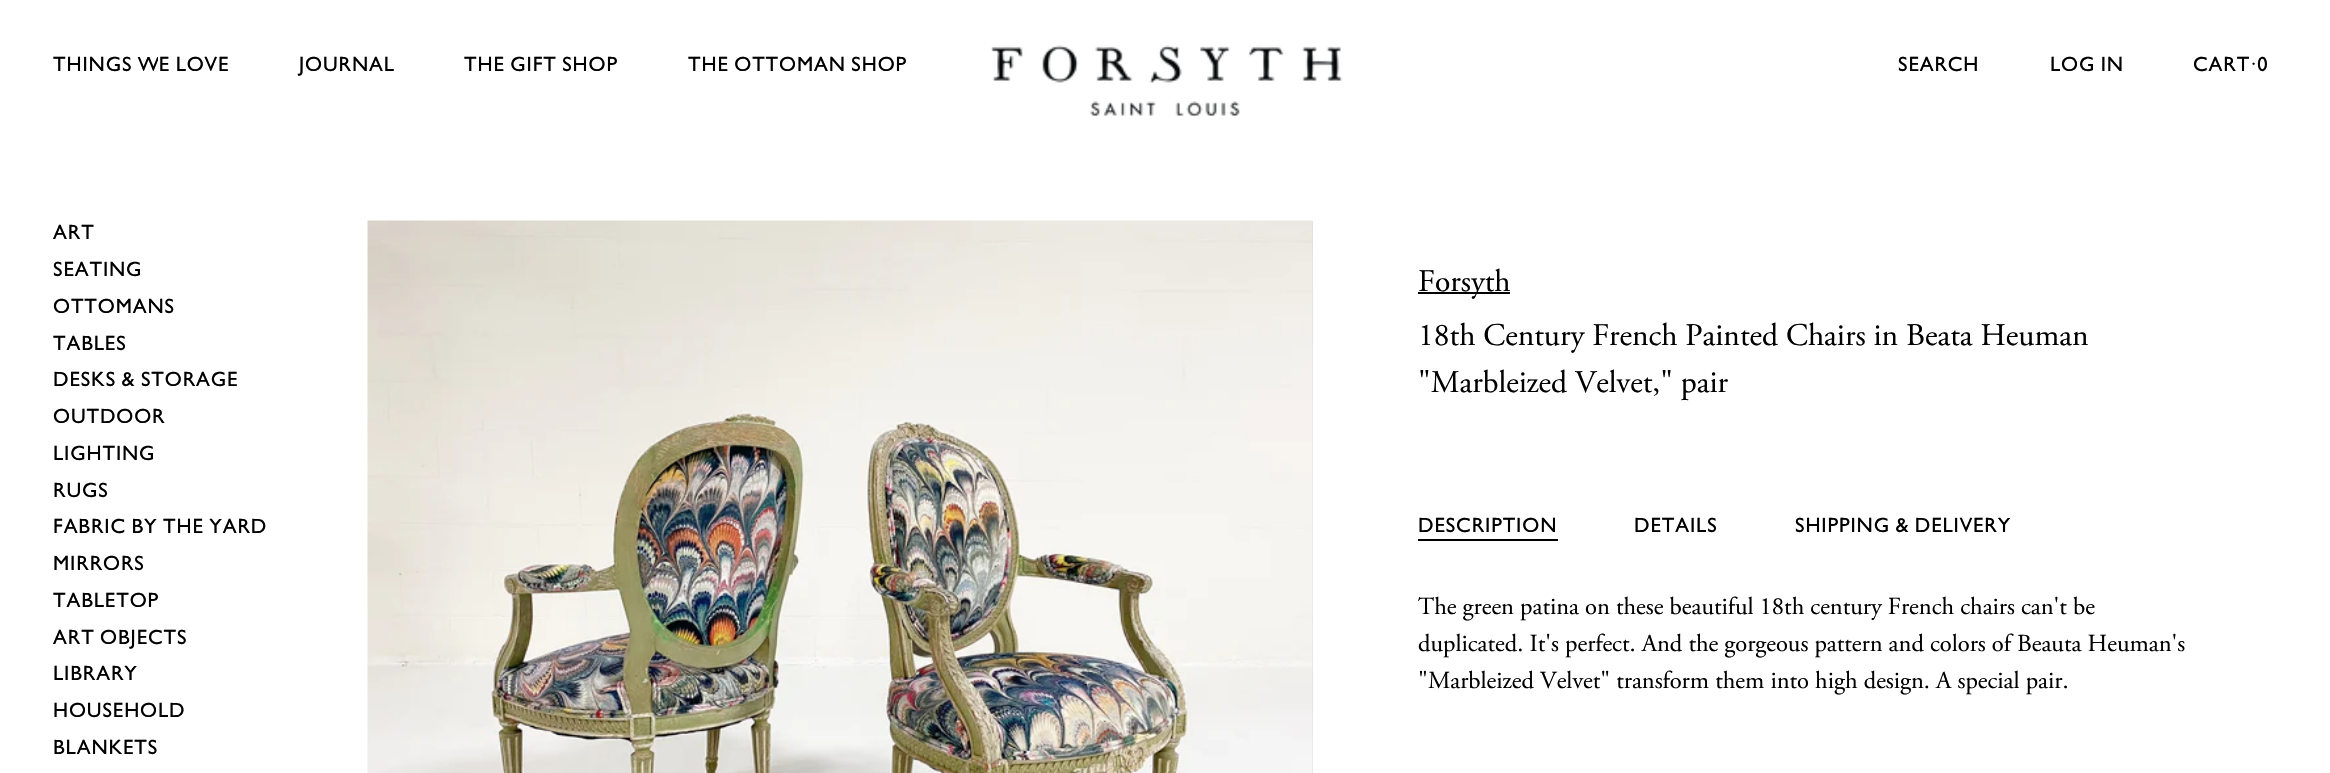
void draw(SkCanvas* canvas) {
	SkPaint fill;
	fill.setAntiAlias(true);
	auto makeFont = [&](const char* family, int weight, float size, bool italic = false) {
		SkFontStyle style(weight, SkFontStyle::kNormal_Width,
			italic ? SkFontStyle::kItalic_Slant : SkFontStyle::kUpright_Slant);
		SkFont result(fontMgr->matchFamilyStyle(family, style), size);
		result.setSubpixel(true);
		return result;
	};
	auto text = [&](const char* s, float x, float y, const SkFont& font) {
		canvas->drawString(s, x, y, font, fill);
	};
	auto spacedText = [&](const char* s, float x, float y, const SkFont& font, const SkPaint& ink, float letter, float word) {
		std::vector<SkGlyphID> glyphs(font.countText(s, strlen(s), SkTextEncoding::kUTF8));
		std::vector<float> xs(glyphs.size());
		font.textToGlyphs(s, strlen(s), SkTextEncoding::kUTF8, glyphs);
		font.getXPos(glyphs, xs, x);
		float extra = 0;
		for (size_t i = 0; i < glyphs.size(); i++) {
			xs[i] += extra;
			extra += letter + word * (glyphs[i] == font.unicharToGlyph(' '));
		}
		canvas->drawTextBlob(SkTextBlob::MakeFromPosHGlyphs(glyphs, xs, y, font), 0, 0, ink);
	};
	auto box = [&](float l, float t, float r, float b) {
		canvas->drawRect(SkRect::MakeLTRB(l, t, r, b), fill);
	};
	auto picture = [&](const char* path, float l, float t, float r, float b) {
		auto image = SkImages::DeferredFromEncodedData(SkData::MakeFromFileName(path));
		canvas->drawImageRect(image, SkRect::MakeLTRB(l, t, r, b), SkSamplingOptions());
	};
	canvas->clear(0xFFFFFFFF);
	picture("image0.png", 991, 45, 1343, 117);
	fill.setColor(0xFFDDDDDD);
	box(1312, 221, 1313, 773);
	picture("image1.png", 367, 220, 1313, 773);
	fill.setColor(0xFF000000);
	box(1418, 292, 1510, 294);
	box(1418, 539, 1558, 541);
	auto font1 = makeFont("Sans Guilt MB", 500, 24.5f);
	spacedText("THINGS WE LOVE", 53, 71, font1, fill, 0.9f, 0);
	spacedText("JOURNAL", 299, 71, font1, fill, 0.9f, 0);
	spacedText("THE GIFT SHOP", 464, 71, font1, fill, 0.9f, 0);
	spacedText("THE OTTOMAN SHOP", 688, 71, font1, fill, 0.9f, 0);
	spacedText("SEARCH", 1898, 71, font1, fill, 0.9f, 0);
	spacedText("LOG IN", 2050, 71, font1, fill, 0.9f, 0);
	spacedText("CART · 0", 2193, 71, font1, fill, 0.9f, 0);
	spacedText("ART", 53, 239, font1, fill, 0.9f, 0);
	spacedText("SEATING", 53, 276, font1, fill, 0.9f, 0);
	spacedText("OTTOMANS", 53, 313, font1, fill, 0.9f, 0);
	spacedText("TABLES", 53, 350, font1, fill, 0.9f, 0);
	spacedText("DESKS & STORAGE", 53, 386, font1, fill, 0.9f, 0);
	spacedText("OUTDOOR", 53, 423, font1, fill, 0.9f, 0);
	spacedText("LIGHTING", 53, 460, font1, fill, 0.9f, 0);
	spacedText("RUGS", 53, 497, font1, fill, 0.9f, 0);
	spacedText("FABRIC BY THE YARD", 53, 533, font1, fill, 0.9f, 0);
	spacedText("MIRRORS", 53, 570, font1, fill, 0.9f, 0);
	spacedText("TABLETOP", 53, 607, font1, fill, 0.9f, 0);
	spacedText("ART OBJECTS", 53, 644, font1, fill, 0.9f, 0);
	spacedText("LIBRARY", 53, 680, font1, fill, 0.9f, 0);
	spacedText("HOUSEHOLD", 53, 717, font1, fill, 0.9f, 0);
	spacedText("BLANKETS", 53, 754, font1, fill, 0.9f, 0);
	auto font2 = makeFont("Adobe Garamond", 400, 31.5f);
	text("Forsyth", 1418, 291, font2);
	text("18th Century French Painted Chairs in Beata Heuman", 1418, 345, font2);
	text("\"Marbleized Velvet,\" pair", 1418, 392, font2);
	spacedText("DESCRIPTION", 1418, 532, font1, fill, 0.9f, 0);
	spacedText("DETAILS", 1634, 532, font1, fill, 0.9f, 0);
	spacedText("SHIPPING & DELIVERY", 1795, 532, font1, fill, 0.9f, 0);
	auto font3 = makeFont("Adobe Garamond", 400, 24.5f);
	text("The green patina on these beautiful 18th century French chairs can't be", 1418, 614, font3);
	text("duplicated. It's perfect. And the gorgeous pattern and colors of Beauta Heuman's", 1418, 651, font3);
	text("\"Marbleized Velvet\" transform them into high design. A special pair.", 1418, 688, font3);
}
